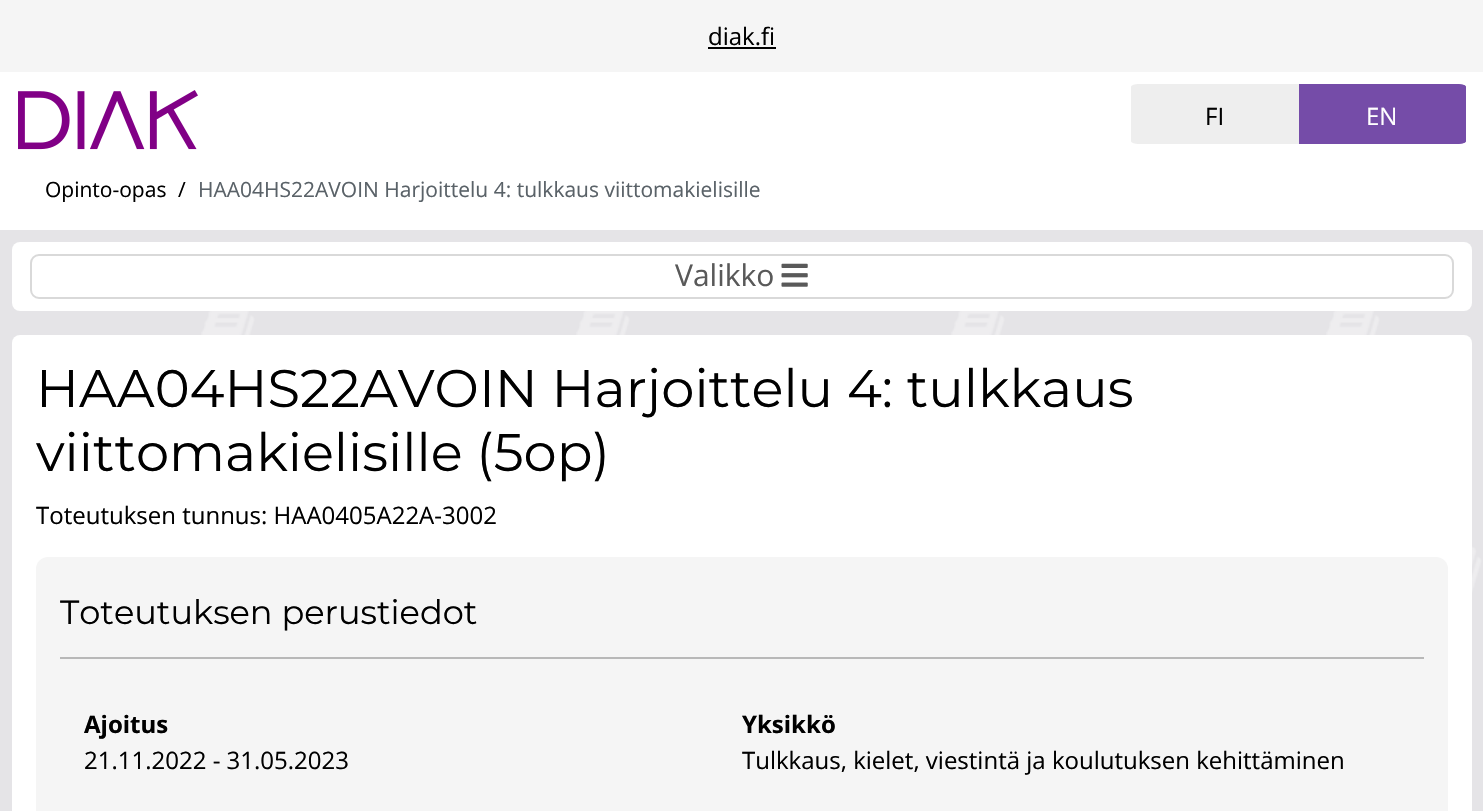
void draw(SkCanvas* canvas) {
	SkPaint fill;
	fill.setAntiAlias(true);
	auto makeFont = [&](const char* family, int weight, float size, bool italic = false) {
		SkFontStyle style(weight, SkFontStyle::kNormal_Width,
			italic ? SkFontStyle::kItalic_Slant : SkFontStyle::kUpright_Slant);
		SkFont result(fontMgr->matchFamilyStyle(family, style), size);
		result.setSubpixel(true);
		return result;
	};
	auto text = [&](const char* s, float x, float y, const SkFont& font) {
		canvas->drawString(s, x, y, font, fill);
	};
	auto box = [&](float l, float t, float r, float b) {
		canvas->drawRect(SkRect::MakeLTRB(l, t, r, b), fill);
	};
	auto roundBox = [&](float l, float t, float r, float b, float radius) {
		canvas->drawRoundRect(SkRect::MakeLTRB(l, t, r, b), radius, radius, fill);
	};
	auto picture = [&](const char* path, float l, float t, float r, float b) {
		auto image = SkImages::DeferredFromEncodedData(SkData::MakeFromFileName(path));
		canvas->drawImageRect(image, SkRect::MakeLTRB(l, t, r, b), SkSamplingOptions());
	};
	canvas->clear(0xFFFFFFFF);
	picture("image0.png", 0, 230, 1483, 811);
	fill.setColor(0xFFF5F5F5);
	box(0, 0, 1483, 72);
	fill.setColor(0xFF000000);
	box(708, 47, 776, 49);
	picture("image1.png", 18, 90, 198, 150);
	fill.setColor(0xFF754CA8);
	canvas->drawPath(SkPathBuilder().moveTo(1298, 84).lineTo(1457, 84).cubicTo(1462, 84, 1466, 85, 1466, 87).lineTo(1466, 141).cubicTo(1466, 143, 1462, 144, 1457, 144).lineTo(1298, 144).close().detach(), fill);
	fill.setStyle(SkPaint::kStroke_Style);
	fill.setStrokeWidth(1.5f);
	canvas->drawPath(SkPathBuilder().moveTo(1298, 85).lineTo(1457, 85).cubicTo(1461.5f, 85, 1465, 86, 1465, 87).lineTo(1465, 141).cubicTo(1465, 142, 1461.5f, 143, 1457, 143).lineTo(1298, 143).close().detach(), fill);
	fill.setStyle(SkPaint::kFill_Style);
	fill.setColor(0xFFEEEEEE);
	canvas->drawPath(SkPathBuilder().moveTo(1139, 84).lineTo(1299, 84).lineTo(1299, 144).lineTo(1139, 144).cubicTo(1135, 144, 1131, 143, 1131, 141).lineTo(1131, 87).cubicTo(1131, 85, 1135, 84, 1139, 84).close().detach(), fill);
	fill.setColor(0xFFFFFFFF);
	roundBox(12, 242, 1472, 311, 8);
	fill.setStyle(SkPaint::kStroke_Style);
	fill.setStrokeWidth(2);
	fill.setColor(0xFFD9D9D9);
	canvas->drawRoundRect(SkRect::MakeLTRB(31, 255, 1453, 298), 8, 8, fill);
	picture("image2.png", 781, 263, 808, 287);
	fill.setStyle(SkPaint::kFill_Style);
	fill.setColor(0xFFFFFFFF);
	roundBox(12, 335, 1472, 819, 8);
	fill.setColor(0xFFF5F5F5);
	roundBox(36, 557, 1448, 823, 12);
	fill.setColor(0xFFB8B8B8);
	box(60, 657, 1424, 659);
	auto font1 = makeFont("Open Sans", 400, 24);
	fill.setColor(0xFF000000);
	text("diak.fi", 708, 45, font1);
	text("FI", 1205, 125, font1);
	fill.setColor(0xFFFFFFFF);
	text("EN", 1366, 125, font1);
	auto font2 = makeFont("Open Sans", 400, 21);
	fill.setColor(0xFF000000);
	text("Opinto-opas", 45, 197, font2);
	text("/", 178, 197, font2);
	fill.setColor(0xFF5A6268);
	text("HAA04HS22AVOIN Harjoittelu 4: tulkkaus viittomakielisille", 198, 197, font2);
	auto font3 = makeFont("Open Sans", 400, 30);
	fill.setColor(0xFF595959);
	text("Valikko", 675, 286, font3);
	auto font4 = makeFont("Montserrat", 400, 52.8f);
	fill.setColor(0xFF000000);
	text("HAA04HS22AVOIN Harjoittelu 4: tulkkaus", 36, 407, font4);
	text("viittomakielisille (5op)", 36, 471, font4);
	text("Toteutuksen tunnus: HAA0405A22A-3002", 36, 524, font1);
	auto font5 = makeFont("Montserrat", 400, 33.6f);
	text("Toteutuksen perustiedot", 60, 624, font5);
	auto font6 = makeFont("Open Sans", 700, 24);
	text("Ajoitus", 84, 733, font6);
	text("21.11.2022 - 31.05.2023", 84, 769, font1);
	text("Yksikkö", 742, 733, font6);
	text("Tulkkaus, kielet, viestintä ja koulutuksen kehittäminen", 742, 769, font1);
}
